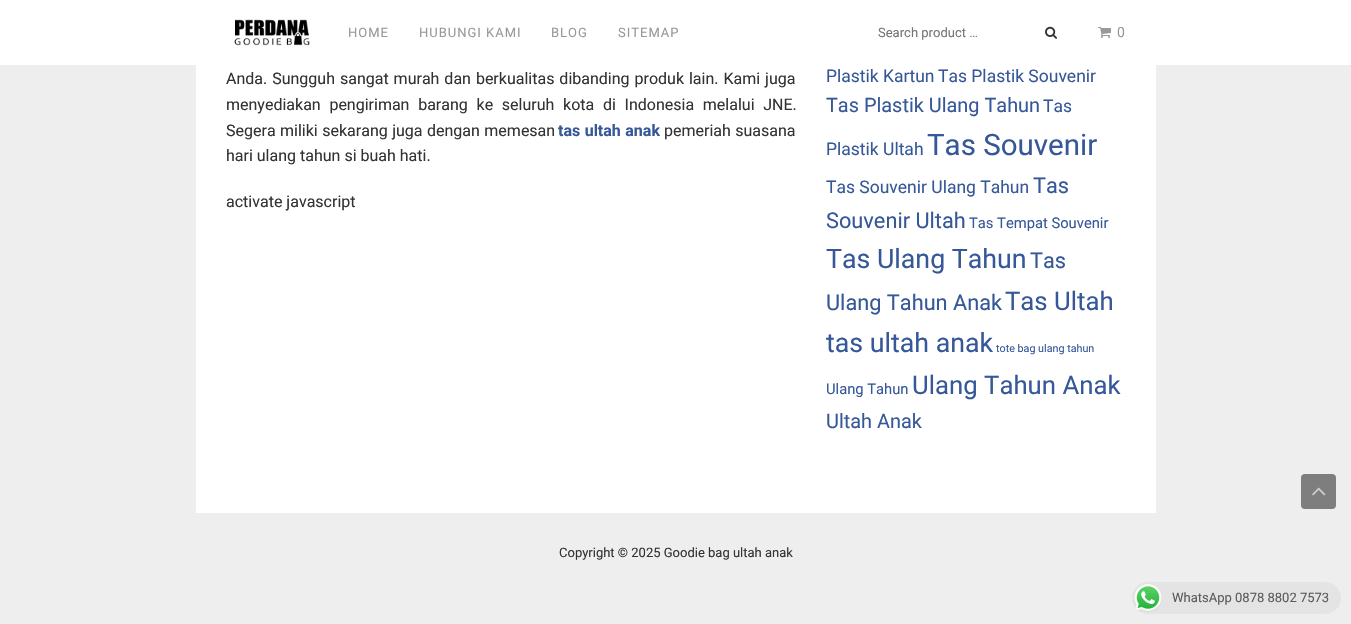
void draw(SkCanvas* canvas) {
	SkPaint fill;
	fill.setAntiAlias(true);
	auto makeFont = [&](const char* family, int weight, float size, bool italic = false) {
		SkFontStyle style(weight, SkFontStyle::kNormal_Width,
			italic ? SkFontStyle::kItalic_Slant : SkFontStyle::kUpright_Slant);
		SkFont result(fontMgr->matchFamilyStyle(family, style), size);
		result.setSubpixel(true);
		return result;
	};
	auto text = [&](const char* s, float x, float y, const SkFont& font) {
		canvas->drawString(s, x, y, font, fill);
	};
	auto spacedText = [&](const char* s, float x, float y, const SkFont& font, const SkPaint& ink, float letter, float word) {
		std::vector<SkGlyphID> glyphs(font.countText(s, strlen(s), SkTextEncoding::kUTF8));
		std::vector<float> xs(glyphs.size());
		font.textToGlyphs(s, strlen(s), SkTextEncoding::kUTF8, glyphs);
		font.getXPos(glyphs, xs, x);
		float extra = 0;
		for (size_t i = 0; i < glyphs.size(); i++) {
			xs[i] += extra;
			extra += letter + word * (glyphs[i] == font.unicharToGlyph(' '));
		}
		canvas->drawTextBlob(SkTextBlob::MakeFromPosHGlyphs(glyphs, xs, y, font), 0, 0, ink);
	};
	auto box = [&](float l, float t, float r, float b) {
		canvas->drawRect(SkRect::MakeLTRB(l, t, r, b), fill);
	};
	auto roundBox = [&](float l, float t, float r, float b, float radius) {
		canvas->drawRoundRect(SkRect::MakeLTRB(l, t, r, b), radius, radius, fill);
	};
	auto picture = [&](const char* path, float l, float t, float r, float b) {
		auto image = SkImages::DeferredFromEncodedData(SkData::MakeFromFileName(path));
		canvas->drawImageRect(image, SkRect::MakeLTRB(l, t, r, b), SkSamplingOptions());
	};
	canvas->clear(0xFFEEEEEE);
	fill.setColor(0xFFFFFFFF);
	box(196, 65, 1156, 513);
	box(0, 0, 1351, 65);
	picture("image0.png", 234, 19, 310, 46);
	picture("image1.png", 1045, 26, 1057, 39);
	picture("image2.png", 1098, 27, 1111, 38);
	fill.setColor(0xFF7E7E7E);
	roundBox(1301, 474, 1336, 509, 4);
	picture("image3.png", 1312, 487, 1326, 496);
	fill.setColor(0xFFE4E4E4);
	roundBox(1132, 582, 1341, 614, 16);
	picture("image4.png", 1134, 584, 1162, 612);
	auto font1 = makeFont("Roboto", 400, 13);
	fill.setColor(0xFF999999);
	spacedText("HOME", 348, 37, font1, fill, 1, 0);
	spacedText("HUBUNGI KAMI", 419, 37, font1, fill, 1, 0);
	spacedText("BLOG", 551, 37, font1, fill, 1, 0);
	spacedText("SITEMAP", 618, 37, font1, fill, 1, 0);
	fill.setColor(0xFF757575);
	text("Search product …", 878, 37, font1);
	auto font2 = makeFont("Roboto", 400, 14);
	fill.setColor(0xFF999999);
	spacedText("0", 1117, 37, font2, fill, 1, 0);
	auto font3 = makeFont("Roboto", 400, 16);
	fill.setColor(0xFF333333);
	spacedText("Anda. Sungguh sangat murah dan berkualitas dibanding produk lain. Kami juga", 226, 84, font3, fill, 0, 1);
	spacedText("menyediakan pengiriman barang ke seluruh kota di Indonesia melalui JNE.", 226, 110, font3, fill, 0, 4.75f);
	spacedText("Segera miliki sekarang juga dengan memesan", 226, 136, font3, fill, 0, 0.5f);
	auto font4 = makeFont("Roboto", 700, 16);
	fill.setColor(0xFF365899);
	spacedText("tas ultah anak", 558, 136, font4, fill, 0, 0.5f);
	fill.setColor(0xFF333333);
	spacedText("pemeriah suasana", 664, 136, font3, fill, 0, 0.5f);
	text("hari ulang tahun si buah hati.", 226, 161, font3);
	text("activate javascript", 226, 207, font3);
	auto font5 = makeFont("Roboto", 400, 17.5f);
	fill.setColor(0xFF365899);
	text("Plastik Kartun", 826, 82, font5);
	text("Tas Plastik Souvenir", 938, 82, font5);
	auto font6 = makeFont("Roboto", 400, 19.9f);
	text("Tas Plastik Ulang Tahun", 826, 112, font6);
	text("Tas", 1043, 112, font5);
	text("Plastik Ultah", 826, 155, font5);
	auto font7 = makeFont("Roboto", 400, 29.5f);
	text("Tas Souvenir", 927, 155, font7);
	text("Tas Souvenir Ulang Tahun", 826, 193, font5);
	auto font8 = makeFont("Roboto", 400, 21.75f);
	text("Tas", 1033, 193, font8);
	text("Souvenir Ultah", 826, 228, font8);
	auto font9 = makeFont("Roboto", 400, 14.75f);
	text("Tas Tempat Souvenir", 969, 228, font9);
	auto font10 = makeFont("Roboto", 400, 26.75f);
	text("Tas Ulang Tahun", 826, 268, font10);
	text("Tas", 1030, 268, font8);
	text("Ulang Tahun Anak", 826, 310, font8);
	auto font11 = makeFont("Roboto", 400, 25.75f);
	text("Tas Ultah", 1005, 310, font11);
	text("tas ultah anak", 826, 352, font10);
	auto font12 = makeFont("Roboto", 400, 10.75f);
	text("tote bag ulang tahun", 996, 352, font12);
	text("Ulang Tahun", 826, 394, font9);
	text("Ulang Tahun Anak", 912, 394, font11);
	text("Ultah Anak", 826, 428, font6);
	fill.setColor(0xFF333333);
	text("Copyright © 2025 Goodie bag ultah anak", 559, 557, font1);
	fill.setColor(0xFF5B5B5B);
	text("WhatsApp 0878 8802 7573", 1172, 602, font1);
}
